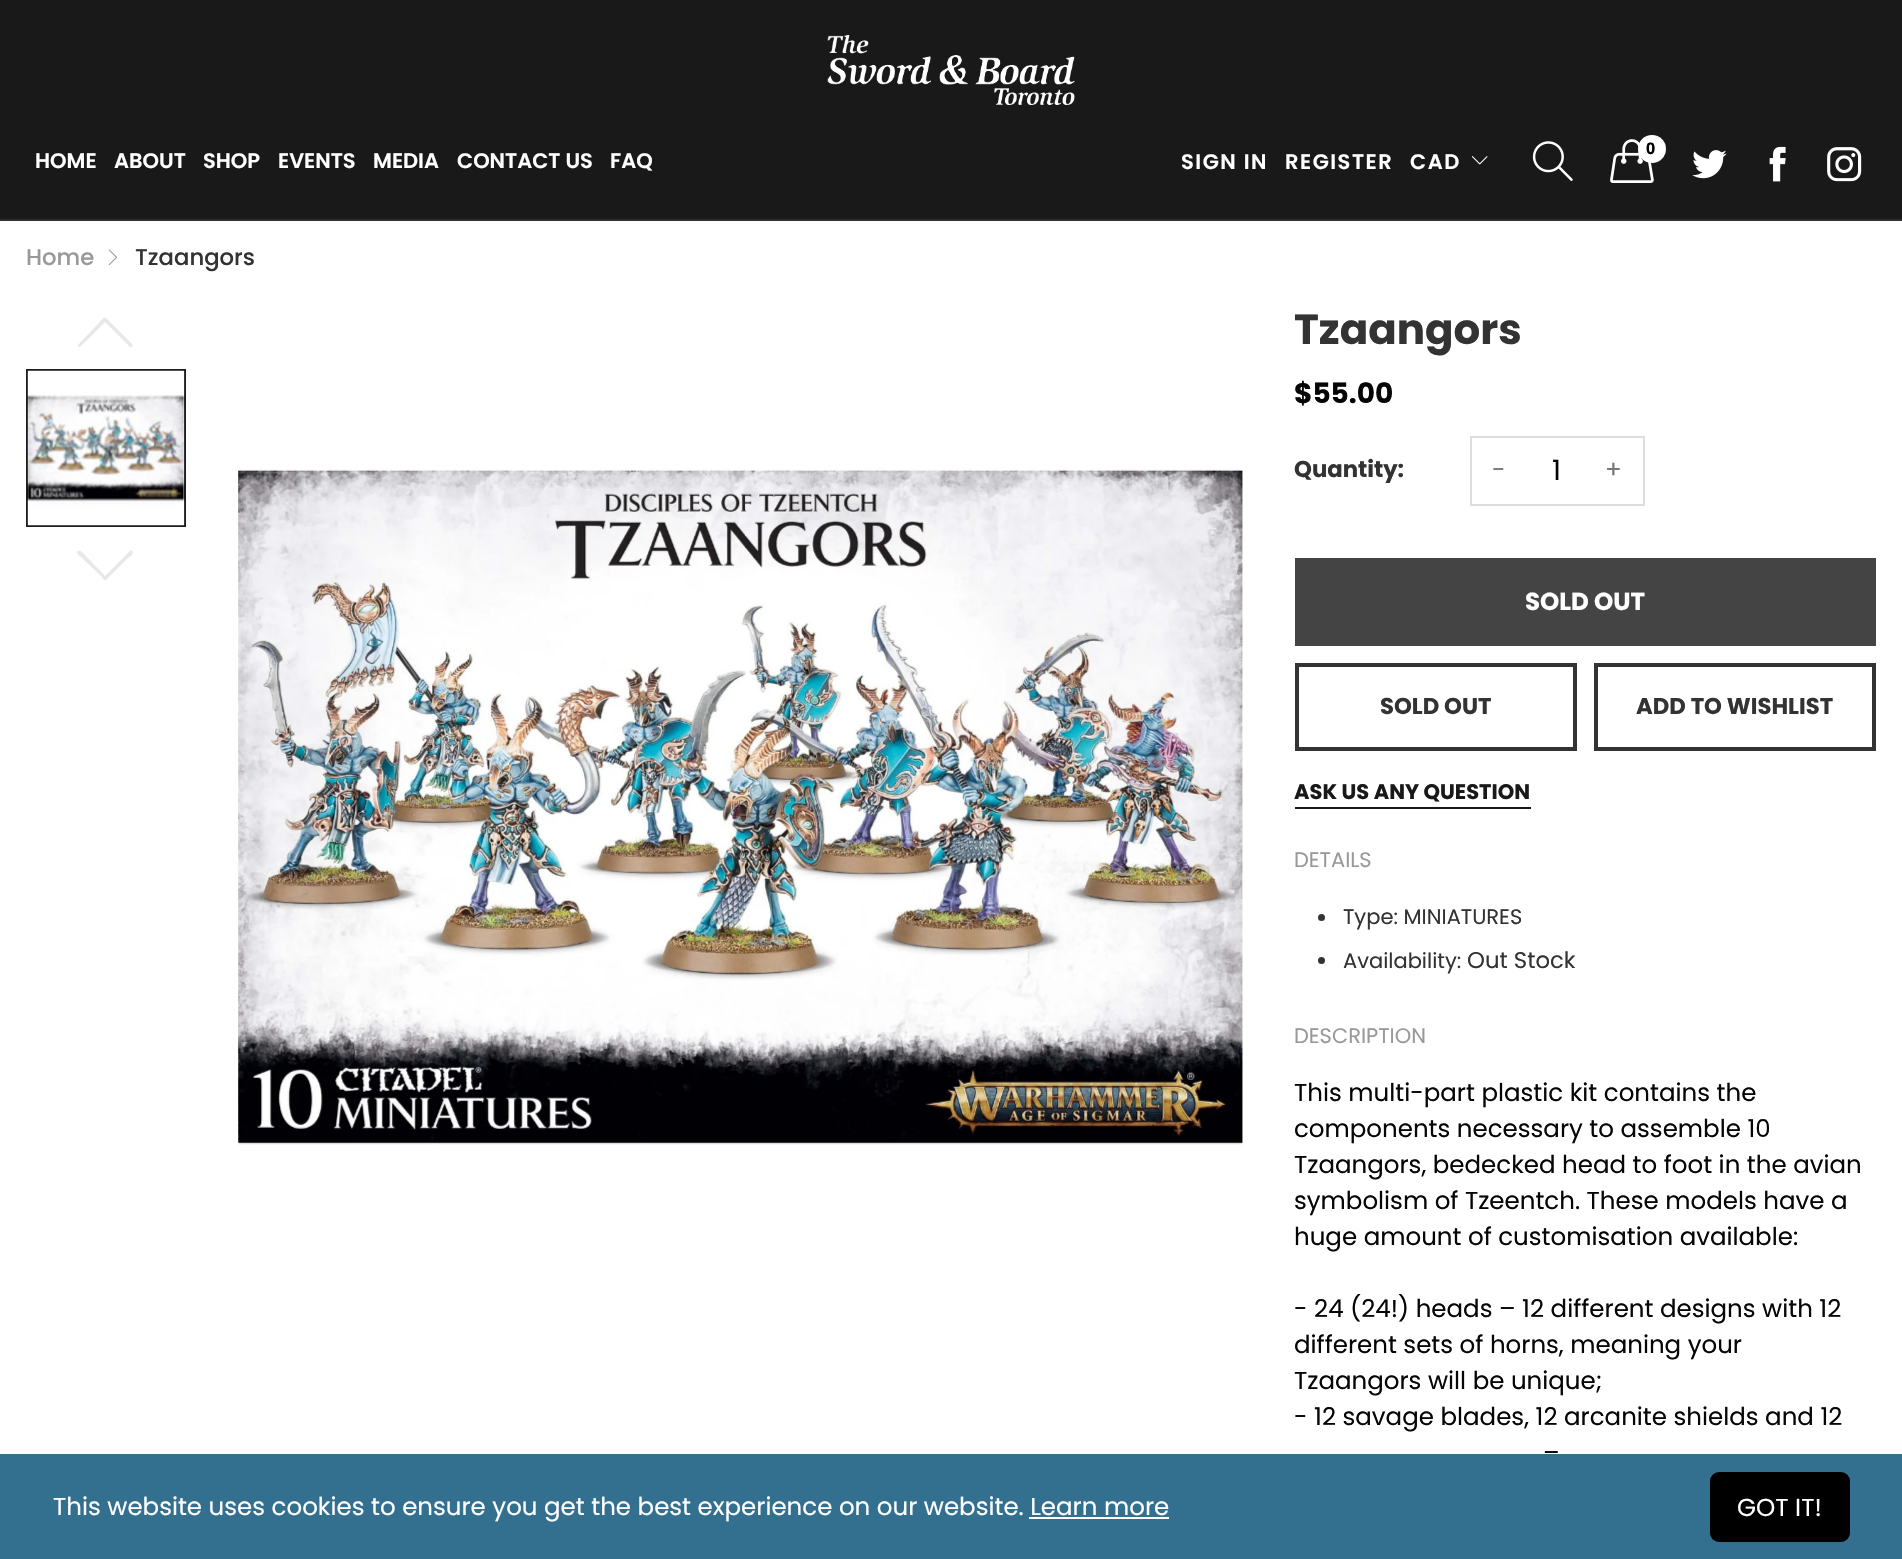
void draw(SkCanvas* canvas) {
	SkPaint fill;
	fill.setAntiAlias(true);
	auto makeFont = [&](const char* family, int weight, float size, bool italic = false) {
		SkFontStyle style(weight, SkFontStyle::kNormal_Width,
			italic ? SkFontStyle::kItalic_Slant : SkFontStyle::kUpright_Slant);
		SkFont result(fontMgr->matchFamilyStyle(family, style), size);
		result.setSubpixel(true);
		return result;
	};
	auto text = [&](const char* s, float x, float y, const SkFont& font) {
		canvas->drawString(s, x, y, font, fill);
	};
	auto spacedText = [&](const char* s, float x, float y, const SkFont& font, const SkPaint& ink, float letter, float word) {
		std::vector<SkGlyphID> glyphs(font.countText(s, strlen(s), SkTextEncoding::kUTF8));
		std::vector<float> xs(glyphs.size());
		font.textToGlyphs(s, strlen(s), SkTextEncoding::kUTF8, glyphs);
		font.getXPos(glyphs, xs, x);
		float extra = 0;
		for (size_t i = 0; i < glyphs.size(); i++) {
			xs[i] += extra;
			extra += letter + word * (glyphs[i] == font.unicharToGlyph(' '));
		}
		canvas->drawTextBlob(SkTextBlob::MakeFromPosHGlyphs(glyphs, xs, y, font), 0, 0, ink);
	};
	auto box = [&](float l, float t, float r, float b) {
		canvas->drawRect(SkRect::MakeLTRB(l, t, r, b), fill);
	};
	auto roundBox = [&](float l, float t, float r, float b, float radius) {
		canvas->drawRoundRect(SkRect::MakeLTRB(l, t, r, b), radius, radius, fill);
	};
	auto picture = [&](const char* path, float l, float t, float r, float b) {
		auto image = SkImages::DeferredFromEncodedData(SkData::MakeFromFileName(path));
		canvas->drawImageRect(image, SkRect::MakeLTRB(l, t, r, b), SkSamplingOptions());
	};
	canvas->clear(0xFFFFFFFF);
	fill.setColor(0xFF191919);
	box(0, 0, 1902, 219);
	fill.setColor(0xFF2F2F2F);
	box(0, 219, 1902, 221);
	picture("image0.png", 827, 35, 1075, 105);
	picture("image1.png", 1471, 156, 1488, 165);
	picture("image2.png", 1532, 141, 1573, 181);
	picture("image3.png", 1610, 139, 1654, 183);
	fill.setColor(0xFFFFFFFF);
	canvas->drawCircle(1652, 149, 14, fill);
	picture("image4.png", 1692, 150, 1727, 179);
	picture("image5.png", 1769, 146, 1786, 182);
	picture("image6.png", 1827, 147, 1862, 182);
	picture("image7.png", 108, 249, 117, 266);
	fill.setColor(0xFFE8E8E8);
	canvas->drawPath(SkPathBuilder().moveTo(78, 345).cubicTo(77, 346, 78, 347, 79, 347).cubicTo(81, 347, 102, 325, 105, 322).lineTo(130, 347).cubicTo(132, 348, 134, 345, 132, 344).lineTo(111, 323).cubicTo(103, 314, 105, 317, 95, 327).close().detach(), fill);
	fill.setStyle(SkPaint::kStroke_Style);
	fill.setStrokeWidth(2);
	fill.setColor(0xFF1A1B1C);
	canvas->drawRect(SkRect::MakeLTRB(27, 370, 185, 526), fill);
	picture("image8.png", 27, 370, 185, 526);
	fill.setStyle(SkPaint::kFill_Style);
	fill.setColor(0xFFE8E8E8);
	canvas->drawPath(SkPathBuilder().moveTo(77, 552).lineTo(78, 551).cubicTo(81, 549, 84, 555, 85, 555).lineTo(105, 576).lineTo(130, 551).cubicTo(131, 550, 133, 551, 133, 552).cubicTo(133, 555, 128, 558, 128, 558).lineTo(111, 575).cubicTo(104, 582, 106, 582, 100, 575).lineTo(82, 558).cubicTo(81, 556, 77, 555, 77, 552).close().detach(), fill);
	picture("image9.png", 238, 469, 1243, 1145);
	fill.setStyle(SkPaint::kStroke_Style);
	fill.setColor(0xFFDDDDDD);
	canvas->drawRect(SkRect::MakeLTRB(1471, 437, 1644, 505), fill);
	fill.setStyle(SkPaint::kFill_Style);
	fill.setColor(0xFF444444);
	box(1295, 558, 1876, 646);
	fill.setStyle(SkPaint::kStroke_Style);
	fill.setStrokeWidth(4);
	fill.setColor(0xFF333333);
	canvas->drawRect(SkRect::MakeLTRB(1297, 665, 1575, 749), fill);
	canvas->drawRect(SkRect::MakeLTRB(1596, 665, 1874, 749), fill);
	fill.setStyle(SkPaint::kFill_Style);
	fill.setColor(0xFF191919);
	box(1295, 807, 1531, 809);
	fill.setColor(0xFF333333);
	canvas->drawCircle(1321.5f, 917.5f, 3.5f, fill);
	canvas->drawCircle(1321.5f, 960.5f, 3.5f, fill);
	fill.setColor(0xFF336F8F);
	box(0, 1454, 1902, 1559);
	fill.setColor(0xFFFFFFFF);
	box(1029, 1517, 1169, 1519);
	fill.setColor(0xFF000000);
	roundBox(1710, 1472, 1850, 1542, 9);
	auto font1 = makeFont("Poppins", 600, 21);
	fill.setColor(0xFFFFFFFF);
	text("HOME", 35, 168, font1);
	text("ABOUT", 114, 168, font1);
	text("SHOP", 203, 168, font1);
	text("EVENTS", 278, 168, font1);
	text("MEDIA", 373, 168, font1);
	text("CONTACT US", 457, 168, font1);
	text("FAQ", 610, 168, font1);
	spacedText("SIGN IN", 1181, 169, font1, fill, 1.5f, 0);
	spacedText("REGISTER", 1285, 169, font1, fill, 1.5f, 0);
	spacedText("CAD", 1410, 169, font1, fill, 1.5f, 0);
	auto font2 = makeFont("Open Sans", 700, 16);
	fill.setColor(0xFF000000);
	spacedText("0", 1646, 154, font2, fill, 1.5f, 0);
	auto font3 = makeFont("Poppins", 500, 22.75f);
	fill.setColor(0xFF999999);
	text("Home", 26, 265, font3);
	fill.setColor(0xFF333333);
	text("Tzaangors", 135, 265, font3);
	auto font4 = makeFont("Poppins", 700, 42);
	text("Tzaangors", 1294, 344, font4);
	auto font5 = makeFont("Poppins", 700, 28);
	fill.setColor(0xFF060606);
	text("$55.00", 1294, 403, font5);
	auto font6 = makeFont("Poppins", 700, 22.75f);
	fill.setColor(0xFF333333);
	text("Quantity:", 1294, 477, font6);
	auto font7 = makeFont("Poppins", 400, 24.5f);
	fill.setColor(0xFF777777);
	text("-", 1492, 478, font7);
	auto font8 = makeFont("Poppins", 400, 28);
	fill.setColor(0xFF060606);
	text("1", 1552, 480, font8);
	fill.setColor(0xFF777777);
	text("+", 1605, 478, font7);
	auto font9 = makeFont("Poppins", 700, 24.5f);
	fill.setColor(0xFFFFFFFF);
	text("SOLD OUT", 1525, 610, font9);
	fill.setColor(0xFF333333);
	text("SOLD OUT", 1380, 714, font6);
	text("ADD TO WISHLIST", 1636, 714, font6);
	auto font10 = makeFont("Poppins", 700, 21);
	fill.setColor(0xFF191919);
	text("ASK US ANY QUESTION", 1294, 799, font10);
	auto font11 = makeFont("Poppins", 400, 21);
	fill.setColor(0xFF999999);
	text("DETAILS", 1294, 867, font11);
	fill.setColor(0xFF333333);
	text("Type: MINIATURES", 1343, 924, font11);
	text("Availability:", 1343, 968, font11);
	auto font12 = makeFont("Poppins", 400, 22.75f);
	text("Out Stock", 1467, 968, font12);
	fill.setColor(0xFF999999);
	text("DESCRIPTION", 1294, 1043, font11);
	fill.setColor(0xFF060606);
	text("This multi-part plastic kit contains the", 1294, 1101, font7);
	text("components necessary to assemble 10", 1294, 1137, font7);
	text("Tzaangors, bedecked head to foot in the avian", 1294, 1173, font7);
	text("symbolism of Tzeentch. These models have a", 1294, 1209, font7);
	text("huge amount of customisation available:", 1294, 1245, font7);
	text("- 24 (24!) heads – 12 different designs with 12", 1294, 1317, font7);
	text("different sets of horns, meaning your", 1294, 1353, font7);
	text("Tzaangors will be unique;", 1294, 1389, font7);
	text("- 12 savage blades, 12 arcanite shields and 12", 1294, 1425, font7);
	text("–", 1543, 1461, font7);
	fill.setColor(0xFFFFFFFF);
	text("This website uses cookies to ensure you get the best experience on our website. Learn more", 53, 1515, font7);
	text("GOT IT!", 1737, 1516, font7);
}
